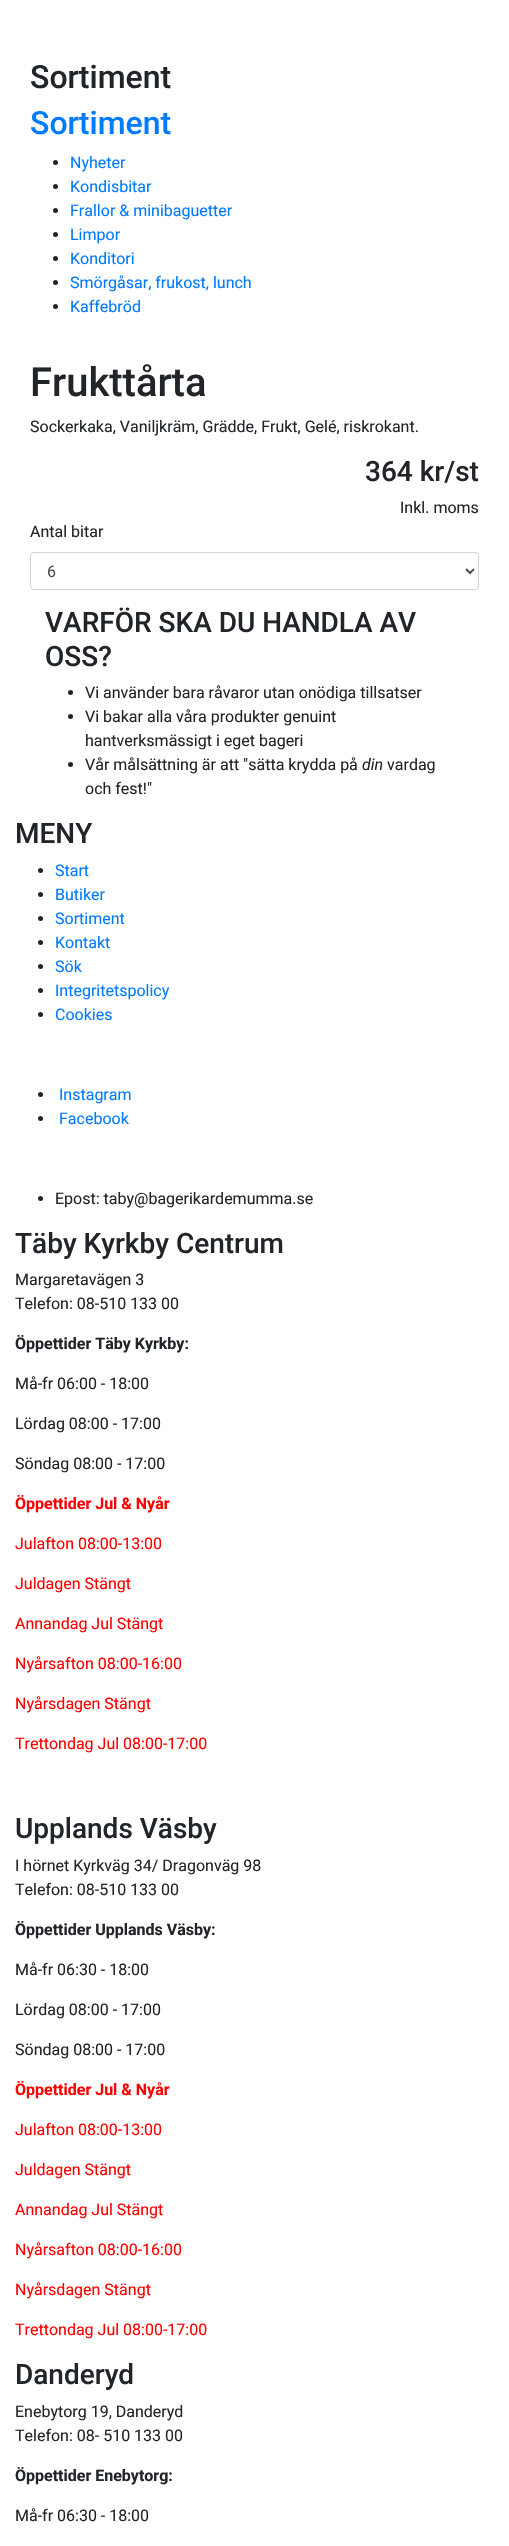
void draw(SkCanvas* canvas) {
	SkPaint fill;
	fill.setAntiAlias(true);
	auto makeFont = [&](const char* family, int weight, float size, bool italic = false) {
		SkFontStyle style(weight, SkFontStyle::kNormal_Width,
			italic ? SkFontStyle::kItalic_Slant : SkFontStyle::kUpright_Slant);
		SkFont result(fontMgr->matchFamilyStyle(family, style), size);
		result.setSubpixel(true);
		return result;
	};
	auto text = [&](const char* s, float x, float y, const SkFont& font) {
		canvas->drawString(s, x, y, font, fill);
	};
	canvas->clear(0xFFFFFFFF);
	fill.setColor(0xFF212529);
	canvas->drawCircle(55.5f, 162.5f, 2.5f, fill);
	canvas->drawCircle(55.5f, 186.5f, 2.5f, fill);
	canvas->drawCircle(55.5f, 210.5f, 2.5f, fill);
	canvas->drawCircle(55.5f, 234.5f, 2.5f, fill);
	canvas->drawCircle(55.5f, 258.5f, 2.5f, fill);
	canvas->drawCircle(55.5f, 282.5f, 2.5f, fill);
	canvas->drawCircle(55.5f, 306.5f, 2.5f, fill);
	fill.setStyle(SkPaint::kStroke_Style);
	fill.setStrokeWidth(1);
	fill.setColor(0xFFCED4DA);
	canvas->drawRoundRect(SkRect::MakeLTRB(30.5f, 552.5f, 478.5f, 589.5f), 3.5f, 3.5f, fill);
	fill.setStrokeWidth(2);
	fill.setColor(0xFF495057);
	canvas->drawPath(SkPathBuilder().moveTo(466, 569).lineTo(470, 573).lineTo(474, 569).detach(), fill);
	fill.setStyle(SkPaint::kFill_Style);
	fill.setColor(0xFF212529);
	canvas->drawCircle(70.5f, 692.5f, 2.5f, fill);
	canvas->drawCircle(70.5f, 716.5f, 2.5f, fill);
	canvas->drawCircle(70.5f, 764.5f, 2.5f, fill);
	canvas->drawCircle(40.5f, 870.5f, 2.5f, fill);
	canvas->drawCircle(40.5f, 894.5f, 2.5f, fill);
	canvas->drawCircle(40.5f, 918.5f, 2.5f, fill);
	canvas->drawCircle(40.5f, 942.5f, 2.5f, fill);
	canvas->drawCircle(40.5f, 966.5f, 2.5f, fill);
	canvas->drawCircle(40.5f, 990.5f, 2.5f, fill);
	canvas->drawCircle(40.5f, 1014.5f, 2.5f, fill);
	canvas->drawCircle(40.5f, 1094.5f, 2.5f, fill);
	canvas->drawCircle(40.5f, 1118.5f, 2.5f, fill);
	canvas->drawCircle(40.5f, 1198.5f, 2.5f, fill);
	auto font1 = makeFont("Roboto", 500, 32);
	text("Sortiment", 30, 88, font1);
	fill.setColor(0xFF007BFF);
	text("Sortiment", 30, 134, font1);
	auto font2 = makeFont("Roboto", 400, 16);
	text("Nyheter", 70, 168, font2);
	text("Kondisbitar", 70, 192, font2);
	text("Frallor & minibaguetter", 70, 216, font2);
	text("Limpor", 70, 240, font2);
	text("Konditori", 70, 264, font2);
	text("Smörgåsar, frukost, lunch", 70, 288, font2);
	text("Kaffebröd", 70, 312, font2);
	auto font3 = makeFont("Roboto", 500, 40);
	fill.setColor(0xFF212529);
	text("Frukttårta", 30, 396, font3);
	text("Sockerkaka, Vaniljkräm, Grädde, Frukt, Gelé, riskrokant.", 30, 432, font2);
	auto font4 = makeFont("Roboto", 500, 28);
	text("364 kr/st", 365, 481, font4);
	text("Inkl. moms", 400, 513, font2);
	text("Antal bitar", 30, 537, font2);
	fill.setColor(0xFF495057);
	text("6", 47, 577, font2);
	fill.setColor(0xFF212529);
	text("VARFÖR SKA DU HANDLA AV", 45, 632, font4);
	text("OSS?", 45, 666, font4);
	text("Vi använder bara råvaror utan onödiga tillsatser", 85, 698, font2);
	text("Vi bakar alla våra produkter genuint", 85, 722, font2);
	text("hantverksmässigt i eget bageri", 85, 746, font2);
	text("Vår målsättning är att \"sätta krydda på", 85, 770, font2);
	auto font5 = makeFont("Roboto", 400, 16, true);
	text("din", 362, 770, font5);
	text("vardag", 387, 770, font2);
	text("och fest!\"", 85, 794, font2);
	text("MENY", 15, 843, font4);
	fill.setColor(0xFF007BFF);
	text("Start", 55, 876, font2);
	text("Butiker", 55, 900, font2);
	text("Sortiment", 55, 924, font2);
	text("Kontakt", 55, 948, font2);
	text("Sök", 55, 972, font2);
	text("Integritetspolicy", 55, 996, font2);
	text("Cookies", 55, 1020, font2);
	text("Instagram", 59, 1100, font2);
	text("Facebook", 59, 1124, font2);
	fill.setColor(0xFF212529);
	text("Epost: taby@bagerikardemumma.se", 55, 1204, font2);
	text("Täby Kyrkby Centrum", 15, 1253, font4);
	text("Margaretavägen 3", 15, 1285, font2);
	text("Telefon: 08-510 133 00", 15, 1309, font2);
	auto font6 = makeFont("Roboto", 700, 16);
	text("Öppettider Täby Kyrkby:", 15, 1349, font6);
	text("Må-fr 06:00 - 18:00", 15, 1389, font2);
	text("Lördag 08:00 - 17:00", 15, 1429, font2);
	text("Söndag 08:00 - 17:00", 15, 1469, font2);
	fill.setColor(0xFFFF0000);
	text("Öppettider Jul & Nyår", 15, 1509, font6);
	text("Julafton 08:00-13:00", 15, 1549, font2);
	text("Juldagen Stängt", 15, 1589, font2);
	text("Annandag Jul Stängt", 15, 1629, font2);
	text("Nyårsafton 08:00-16:00", 15, 1669, font2);
	text("Nyårsdagen Stängt", 15, 1709, font2);
	text("Trettondag Jul 08:00-17:00", 15, 1749, font2);
	fill.setColor(0xFF212529);
	text("Upplands Väsby", 15, 1838, font4);
	text("I hörnet Kyrkväg 34/ Dragonväg 98", 15, 1871, font2);
	text("Telefon: 08-510 133 00", 15, 1895, font2);
	text("Öppettider Upplands Väsby:", 15, 1935, font6);
	text("Må-fr 06:30 - 18:00", 15, 1975, font2);
	text("Lördag 08:00 - 17:00", 15, 2015, font2);
	text("Söndag 08:00 - 17:00", 15, 2055, font2);
	fill.setColor(0xFFFF0000);
	text("Öppettider Jul & Nyår", 15, 2095, font6);
	text("Julafton 08:00-13:00", 15, 2135, font2);
	text("Juldagen Stängt", 15, 2175, font2);
	text("Annandag Jul Stängt", 15, 2215, font2);
	text("Nyårsafton 08:00-16:00", 15, 2255, font2);
	text("Nyårsdagen Stängt", 15, 2295, font2);
	text("Trettondag Jul 08:00-17:00", 15, 2335, font2);
	fill.setColor(0xFF212529);
	text("Danderyd", 15, 2384, font4);
	text("Enebytorg 19, Danderyd", 15, 2417, font2);
	text("Telefon: 08- 510 133 00", 15, 2441, font2);
	text("Öppettider Enebytorg:", 15, 2481, font6);
	text("Må-fr 06:30 - 18:00", 15, 2521, font2);
}
